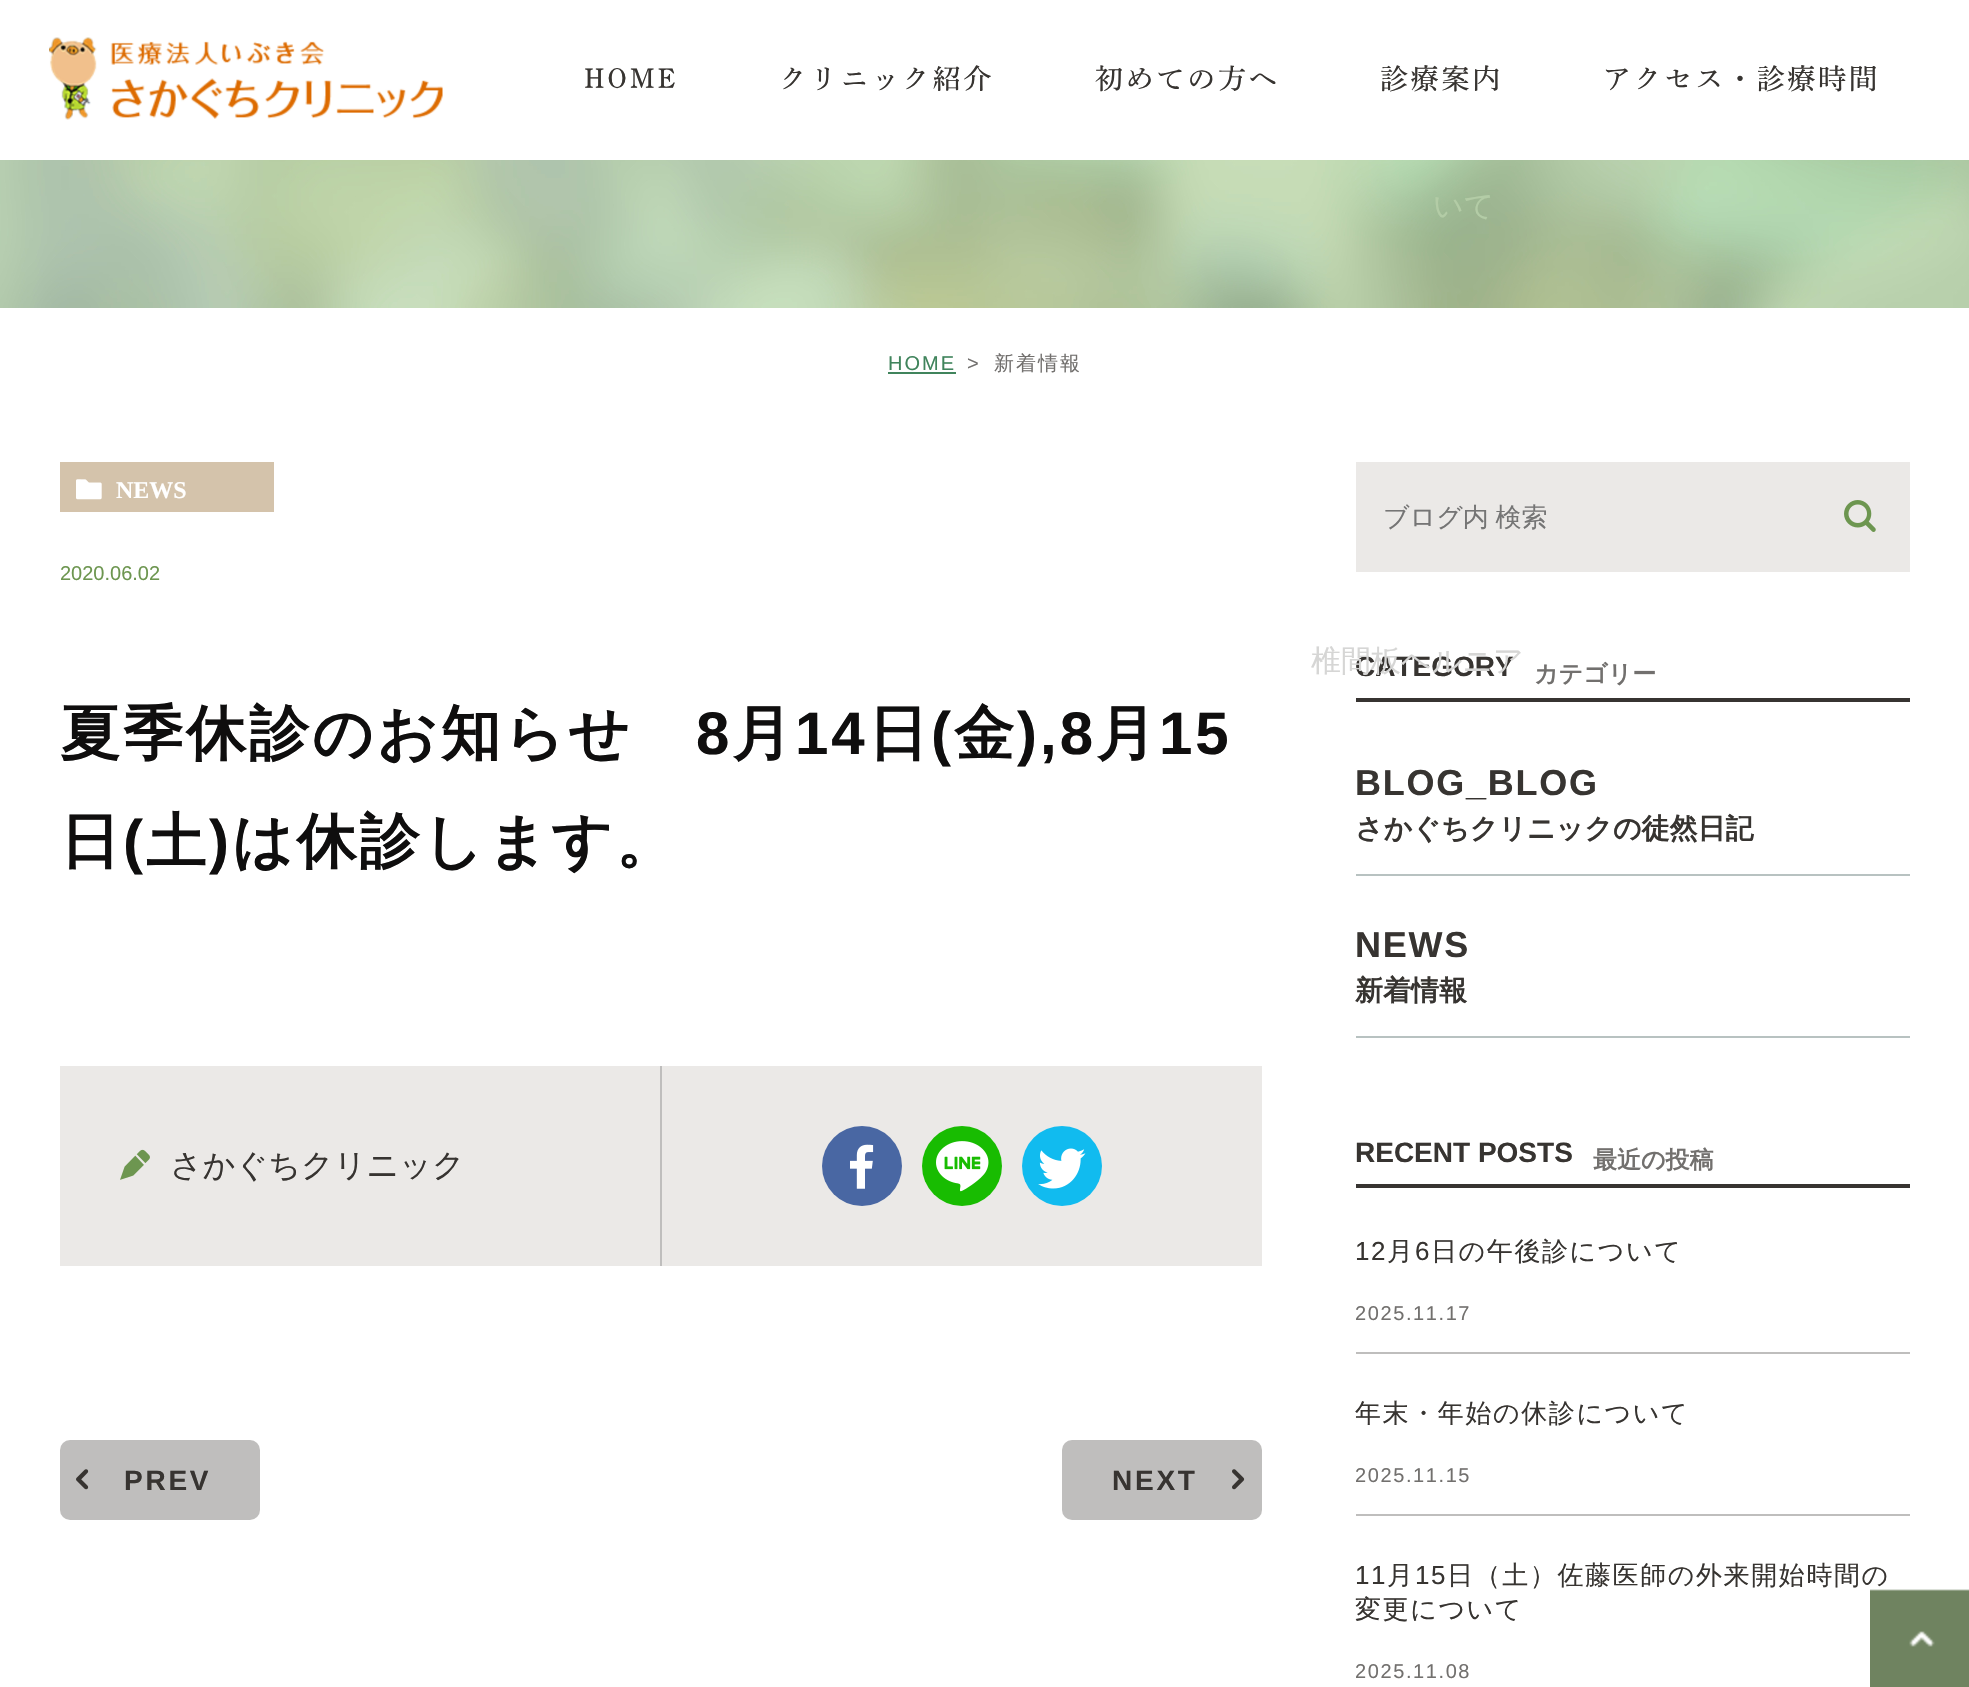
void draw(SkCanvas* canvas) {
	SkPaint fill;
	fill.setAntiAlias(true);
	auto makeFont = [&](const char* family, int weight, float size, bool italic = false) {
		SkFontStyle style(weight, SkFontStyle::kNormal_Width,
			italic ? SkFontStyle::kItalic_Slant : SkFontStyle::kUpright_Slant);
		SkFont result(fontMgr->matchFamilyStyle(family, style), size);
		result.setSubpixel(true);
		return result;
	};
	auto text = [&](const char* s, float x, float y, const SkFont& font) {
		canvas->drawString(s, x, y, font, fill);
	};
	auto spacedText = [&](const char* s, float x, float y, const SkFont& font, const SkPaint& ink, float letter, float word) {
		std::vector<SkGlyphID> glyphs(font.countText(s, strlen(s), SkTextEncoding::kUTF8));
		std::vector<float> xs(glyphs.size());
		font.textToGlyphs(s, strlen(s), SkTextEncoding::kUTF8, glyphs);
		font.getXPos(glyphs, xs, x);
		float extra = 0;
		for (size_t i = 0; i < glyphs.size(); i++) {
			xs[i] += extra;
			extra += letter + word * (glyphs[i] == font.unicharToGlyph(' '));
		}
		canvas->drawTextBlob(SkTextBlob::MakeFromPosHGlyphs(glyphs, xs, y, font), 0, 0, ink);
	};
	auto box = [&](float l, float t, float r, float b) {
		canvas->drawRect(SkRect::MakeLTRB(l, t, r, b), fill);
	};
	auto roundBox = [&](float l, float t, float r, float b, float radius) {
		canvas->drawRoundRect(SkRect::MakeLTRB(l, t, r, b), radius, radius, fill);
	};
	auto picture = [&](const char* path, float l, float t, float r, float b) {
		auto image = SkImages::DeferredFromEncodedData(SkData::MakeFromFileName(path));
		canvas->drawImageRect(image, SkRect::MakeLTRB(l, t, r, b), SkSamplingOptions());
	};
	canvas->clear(0xFFFFFFFF);
	picture("image0.png", 49, 37, 443, 120);
	picture("image1.png", 0, 160, 1969, 308);
	fill.setColor(0xFF40845C);
	box(888, 372, 956, 374);
	fill.setColor(0xFFD4C3AB);
	box(60, 462, 274, 512);
	picture("image2.png", 76, 479, 102, 500);
	fill.setColor(0xFFEBE9E7);
	box(60, 1066, 1262, 1266);
	fill.setColor(0xFFBFBEBD);
	box(660, 1066, 662, 1266);
	picture("image3.png", 120, 1149, 150, 1180);
	fill.setColor(0xFF4967A3);
	canvas->drawCircle(862, 1166, 40, fill);
	picture("image4.png", 850, 1144, 874, 1189);
	fill.setColor(0xFF18BC01);
	canvas->drawCircle(962, 1166, 40, fill);
	picture("image5.png", 936, 1141, 989, 1192);
	fill.setColor(0xFF11BBEF);
	canvas->drawCircle(1062, 1166, 40, fill);
	picture("image6.png", 1038, 1148, 1086, 1189);
	fill.setColor(0xFFBFBEBD);
	roundBox(60, 1440, 260, 1520, 10);
	picture("image7.png", 76, 1469, 89, 1490);
	roundBox(1062, 1440, 1262, 1520, 10);
	picture("image8.png", 1232, 1469, 1245, 1490);
	fill.setColor(0xFFEBE9E7);
	box(1356, 462, 1910, 572);
	picture("image9.png", 1844, 500, 1876, 532);
	fill.setColor(0xFF373431);
	box(1356, 698, 1910, 702);
	fill.setColor(0xFFB8C2C1);
	box(1356, 874, 1910, 876);
	box(1356, 1036, 1910, 1038);
	fill.setColor(0xFF373431);
	box(1356, 1184, 1910, 1188);
	fill.setColor(0xFFBFBEBD);
	box(1356, 1352, 1910, 1354);
	box(1356, 1514, 1910, 1516);
	picture("image10.png", 1870, 1589, 1969, 1687);
	auto font1 = makeFont("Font", 500, 28);
	fill.setColor(0xFF373431);
	spacedText("HOME", 584, 89, font1, fill, 2.75f, 0);
	spacedText("クリニック紹介", 779, 89, font1, fill, 2.75f, 0);
	spacedText("初めての方へ", 1095, 89, font1, fill, 2.75f, 0);
	spacedText("診療案内", 1380, 89, font1, fill, 2.75f, 0);
	auto font2 = makeFont("WenQuanYi Zen Hei", 500, 30);
	fill.setColor(0xFFB3CCA6);
	text("いて", 1433, 216, font2);
	fill.setColor(0xFF373431);
	spacedText("アクセス・診療時間", 1603, 89, font1, fill, 2.75f, 0);
	auto font3 = makeFont("Liberation Sans", 400, 20);
	fill.setColor(0xFF40845C);
	spacedText("HOME", 888, 370, font3, fill, 2, 0);
	fill.setColor(0xFF72706E);
	spacedText(">", 967, 370, font3, fill, 2, 0);
	auto font4 = makeFont("WenQuanYi Zen Hei", 500, 20);
	spacedText("新着情報", 994, 370, font4, fill, 2, 0);
	auto font5 = makeFont("Liberation Serif", 700, 24);
	fill.setColor(0xFFFFFFFF);
	text("NEWS", 116, 498, font5);
	fill.setColor(0xFF6D9650);
	text("2020.06.02", 60, 580, font3);
	auto font6 = makeFont("WenQuanYi Zen Hei", 700, 60);
	fill.setColor(0xFF0F0E0E);
	spacedText("夏季休診のお知らせ", 60, 754, font6, fill, 3, 0);
	auto font7 = makeFont("Liberation Sans", 700, 60);
	spacedText("8", 696, 754, font7, fill, 3, 0);
	spacedText("月", 732, 754, font6, fill, 3, 0);
	spacedText("14", 795, 754, font7, fill, 3, 0);
	spacedText("日", 868, 754, font6, fill, 3, 0);
	spacedText("(", 931, 754, font7, fill, 3, 0);
	spacedText("金", 954, 754, font6, fill, 3, 0);
	spacedText("),8", 1017, 754, font7, fill, 3, 0);
	spacedText("月", 1096, 754, font6, fill, 3, 0);
	spacedText("15", 1159, 754, font7, fill, 3, 0);
	spacedText("日", 60, 862, font6, fill, 3, 0);
	spacedText("(", 123, 862, font7, fill, 3, 0);
	spacedText("土", 146, 862, font6, fill, 3, 0);
	spacedText(")", 209, 862, font7, fill, 3, 0);
	spacedText("は休診します。", 232, 862, font6, fill, 3, 0);
	auto font8 = makeFont("WenQuanYi Zen Hei", 500, 32);
	fill.setColor(0xFF373431);
	text("さかぐちクリニック", 170, 1176, font8);
	auto font9 = makeFont("Liberation Sans", 700, 28);
	spacedText("PREV", 124, 1490, font9, fill, 2.75f, 0);
	spacedText("NEXT", 1112, 1490, font9, fill, 2.75f, 0);
	auto font10 = makeFont("WenQuanYi Zen Hei", 500, 26);
	fill.setColor(0xFF757575);
	spacedText("ブログ内 検索", 1383, 526, font10, fill, 0, -1);
	fill.setColor(0xFF373431);
	text("CATEGORY", 1355, 676, font9);
	fill.setColor(0xFFD6D6D5);
	text("椎間板ヘルニア", 1311, 671, font2);
	auto font11 = makeFont("WenQuanYi Zen Hei", 700, 24);
	fill.setColor(0xFF72706E);
	text("カテゴリー", 1534, 682, font11);
	auto font12 = makeFont("Liberation Sans", 700, 36);
	fill.setColor(0xFF373431);
	spacedText("BLOG_BLOG", 1355, 795, font12, fill, 1.75f, 0);
	auto font13 = makeFont("WenQuanYi Zen Hei", 700, 28);
	text("さかぐちクリニックの徒然日記", 1355, 838, font13);
	spacedText("NEWS", 1355, 957, font12, fill, 1.75f, 0);
	text("新着情報", 1355, 1000, font13);
	text("RECENT POSTS", 1355, 1162, font9);
	fill.setColor(0xFF72706E);
	text("最近の投稿", 1593, 1168, font11);
	auto font14 = makeFont("Liberation Sans", 400, 26);
	fill.setColor(0xFF373431);
	spacedText("12", 1355, 1260, font14, fill, 1.6f, 0);
	spacedText("月", 1387, 1260, font10, fill, 1.6f, 0);
	spacedText("6", 1415, 1260, font14, fill, 1.6f, 0);
	spacedText("日の午後診について", 1431, 1260, font10, fill, 1.6f, 0);
	fill.setColor(0xFF72706E);
	spacedText("2025.11.17", 1355, 1320, font3, fill, 1.6f, 0);
	fill.setColor(0xFF373431);
	spacedText("年末・年始の休診について", 1355, 1422, font10, fill, 1.6f, 0);
	fill.setColor(0xFF72706E);
	spacedText("2025.11.15", 1355, 1482, font3, fill, 1.6f, 0);
	fill.setColor(0xFF373431);
	spacedText("11", 1355, 1584, font14, fill, 1.6f, 0);
	spacedText("月", 1387, 1584, font10, fill, 1.6f, 0);
	spacedText("15", 1415, 1584, font14, fill, 1.6f, 0);
	spacedText("日（土）佐藤医師の外来開始時間の", 1447, 1584, font10, fill, 1.6f, 0);
	spacedText("変更について", 1355, 1618, font10, fill, 1.6f, 0);
	fill.setColor(0xFF72706E);
	spacedText("2025.11.08", 1355, 1678, font3, fill, 1.6f, 0);
}
